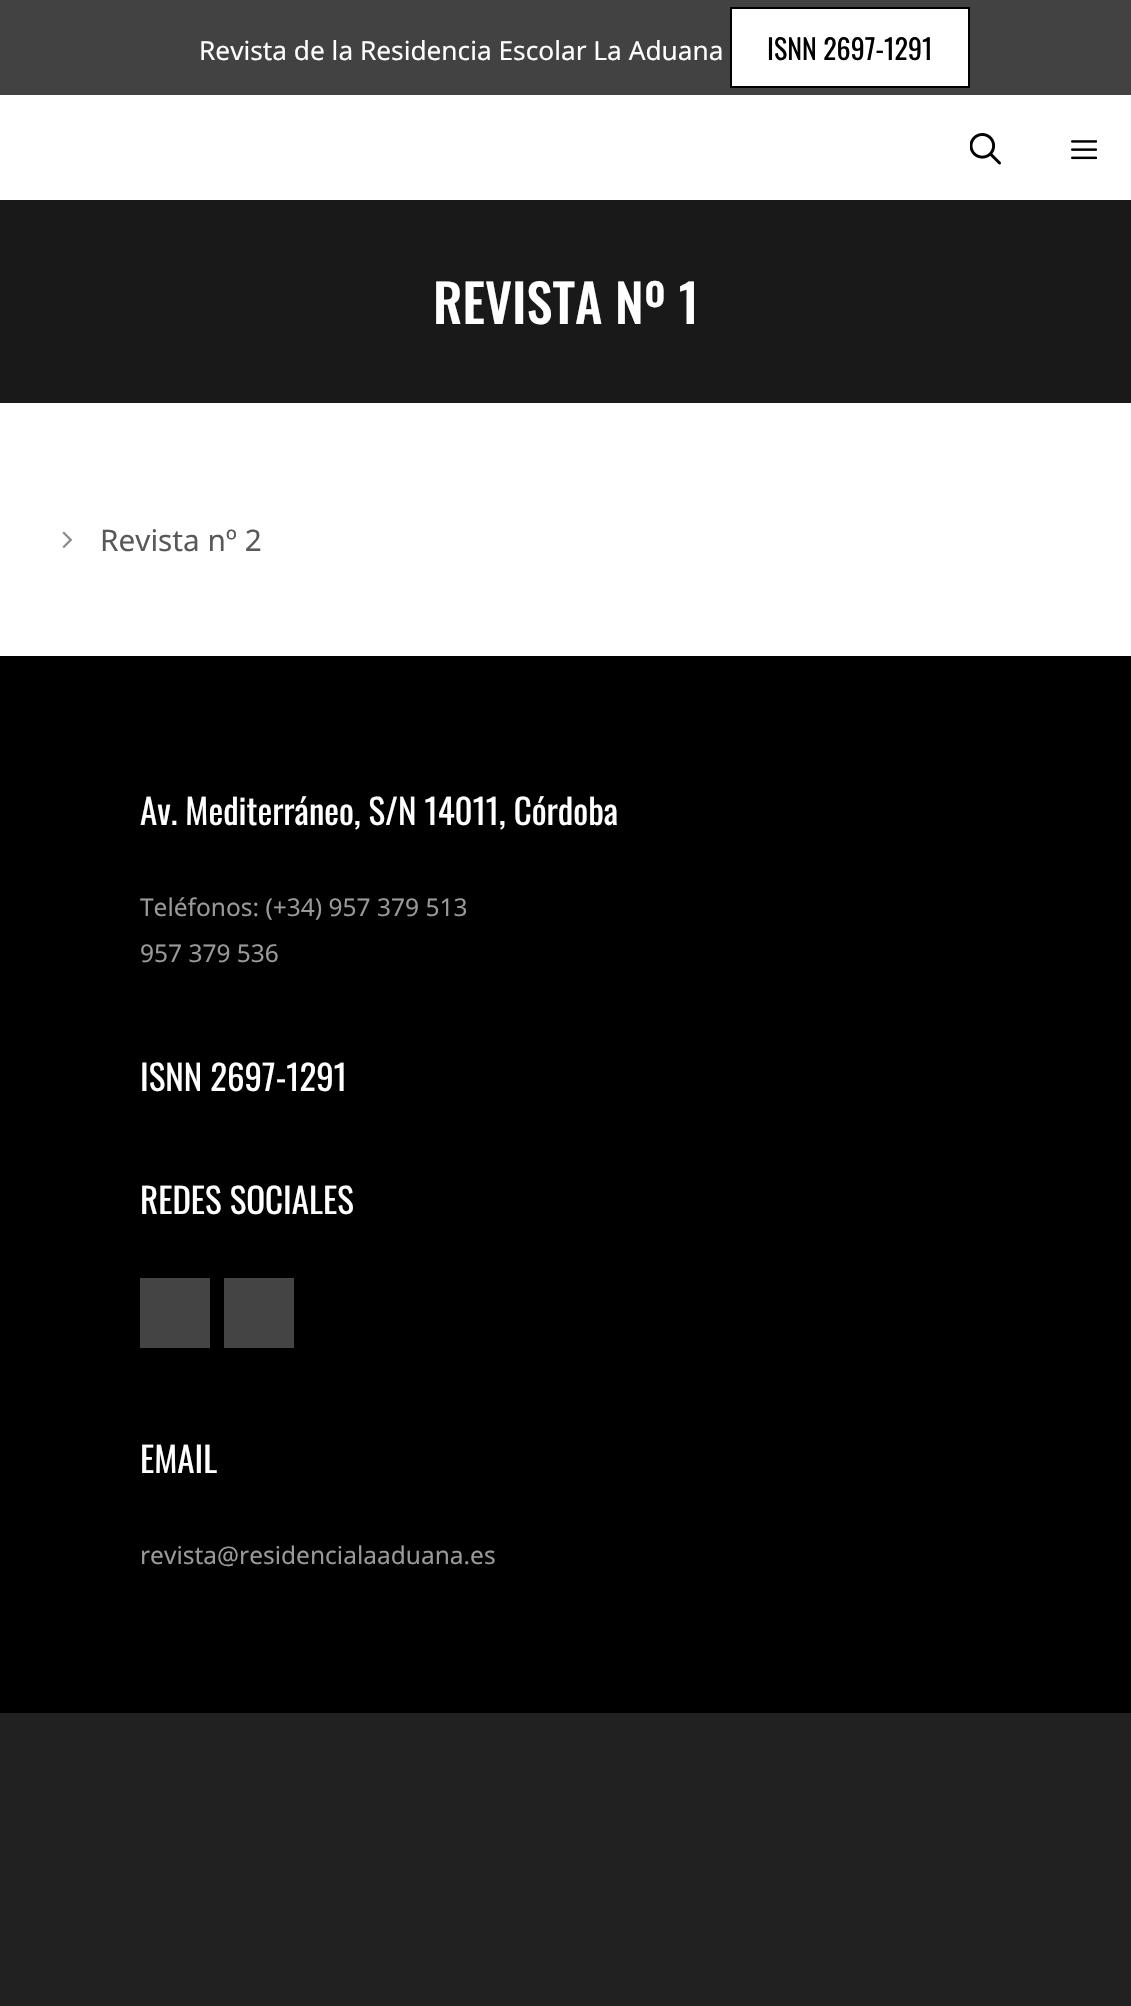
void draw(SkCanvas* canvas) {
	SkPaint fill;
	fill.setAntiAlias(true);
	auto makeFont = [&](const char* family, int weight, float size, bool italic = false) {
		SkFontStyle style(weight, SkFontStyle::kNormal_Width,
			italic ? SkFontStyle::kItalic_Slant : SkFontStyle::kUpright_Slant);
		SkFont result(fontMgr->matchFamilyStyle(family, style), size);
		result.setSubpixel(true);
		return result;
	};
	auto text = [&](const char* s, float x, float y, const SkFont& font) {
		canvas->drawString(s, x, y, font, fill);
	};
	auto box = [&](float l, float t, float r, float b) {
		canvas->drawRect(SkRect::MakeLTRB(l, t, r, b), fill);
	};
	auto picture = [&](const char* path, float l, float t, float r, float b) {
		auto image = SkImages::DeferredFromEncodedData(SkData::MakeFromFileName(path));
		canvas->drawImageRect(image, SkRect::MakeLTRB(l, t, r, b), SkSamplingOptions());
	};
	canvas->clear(0xFFFFFFFF);
	fill.setColor(0xFF424242);
	box(0, 0, 1131, 95);
	fill.setColor(0xFFFFFFFF);
	canvas->drawRect(SkRect::MakeLTRB(731, 8, 969, 87), fill);
	fill.setStyle(SkPaint::kStroke_Style);
	fill.setStrokeWidth(2);
	fill.setColor(0xFF000000);
	canvas->drawRect(SkRect::MakeLTRB(731, 8, 969, 87), fill);
	picture("image0.png", 970, 133, 1001, 165);
	picture("image1.png", 1071, 140, 1097, 160);
	fill.setStyle(SkPaint::kFill_Style);
	fill.setColor(0xFF191919);
	box(0, 200, 1131, 403);
	picture("image2.png", 62, 531, 73, 548);
	fill.setColor(0xFF000000);
	box(0, 656, 1131, 1713);
	fill.setColor(0xFF444444);
	box(140, 1278, 210, 1348);
	box(224, 1278, 294, 1348);
	fill.setColor(0xFF212121);
	box(0, 1713, 1131, 2006);
	auto font1 = makeFont("Noto Sans", 400, 26.25f);
	fill.setColor(0xFFFFFFFF);
	text("Revista de la Residencia Escolar La Aduana", 199, 60, font1);
	auto font2 = makeFont("Oswald", 400, 28);
	fill.setColor(0xFF000000);
	text("ISNN 2697-1291", 767, 60, font2);
	auto font3 = makeFont("Oswald", 500, 52.5f);
	fill.setColor(0xFFFFFFFF);
	text("REVISTA Nº 1", 433, 324, font3);
	auto font4 = makeFont("Noto Sans", 400, 29.75f);
	fill.setColor(0xFF595959);
	text("Revista nº 2", 100, 551, font4);
	auto font5 = makeFont("Oswald", 400, 35);
	fill.setColor(0xFFFFFFFF);
	text("Av. Mediterráneo, S/N 14011, Córdoba", 140, 825, font5);
	auto font6 = makeFont("Noto Sans", 400, 24.5f);
	fill.setColor(0xFF999999);
	text("Teléfonos: (+34) 957 379 513", 140, 916, font6);
	text("957 379 536", 140, 962, font6);
	fill.setColor(0xFFFFFFFF);
	text("ISNN 2697-1291", 140, 1091, font5);
	text("REDES SOCIALES", 140, 1214, font5);
	text("EMAIL", 140, 1473, font5);
	fill.setColor(0xFF999999);
	text("revista@residencialaaduana.es", 140, 1564, font6);
}
